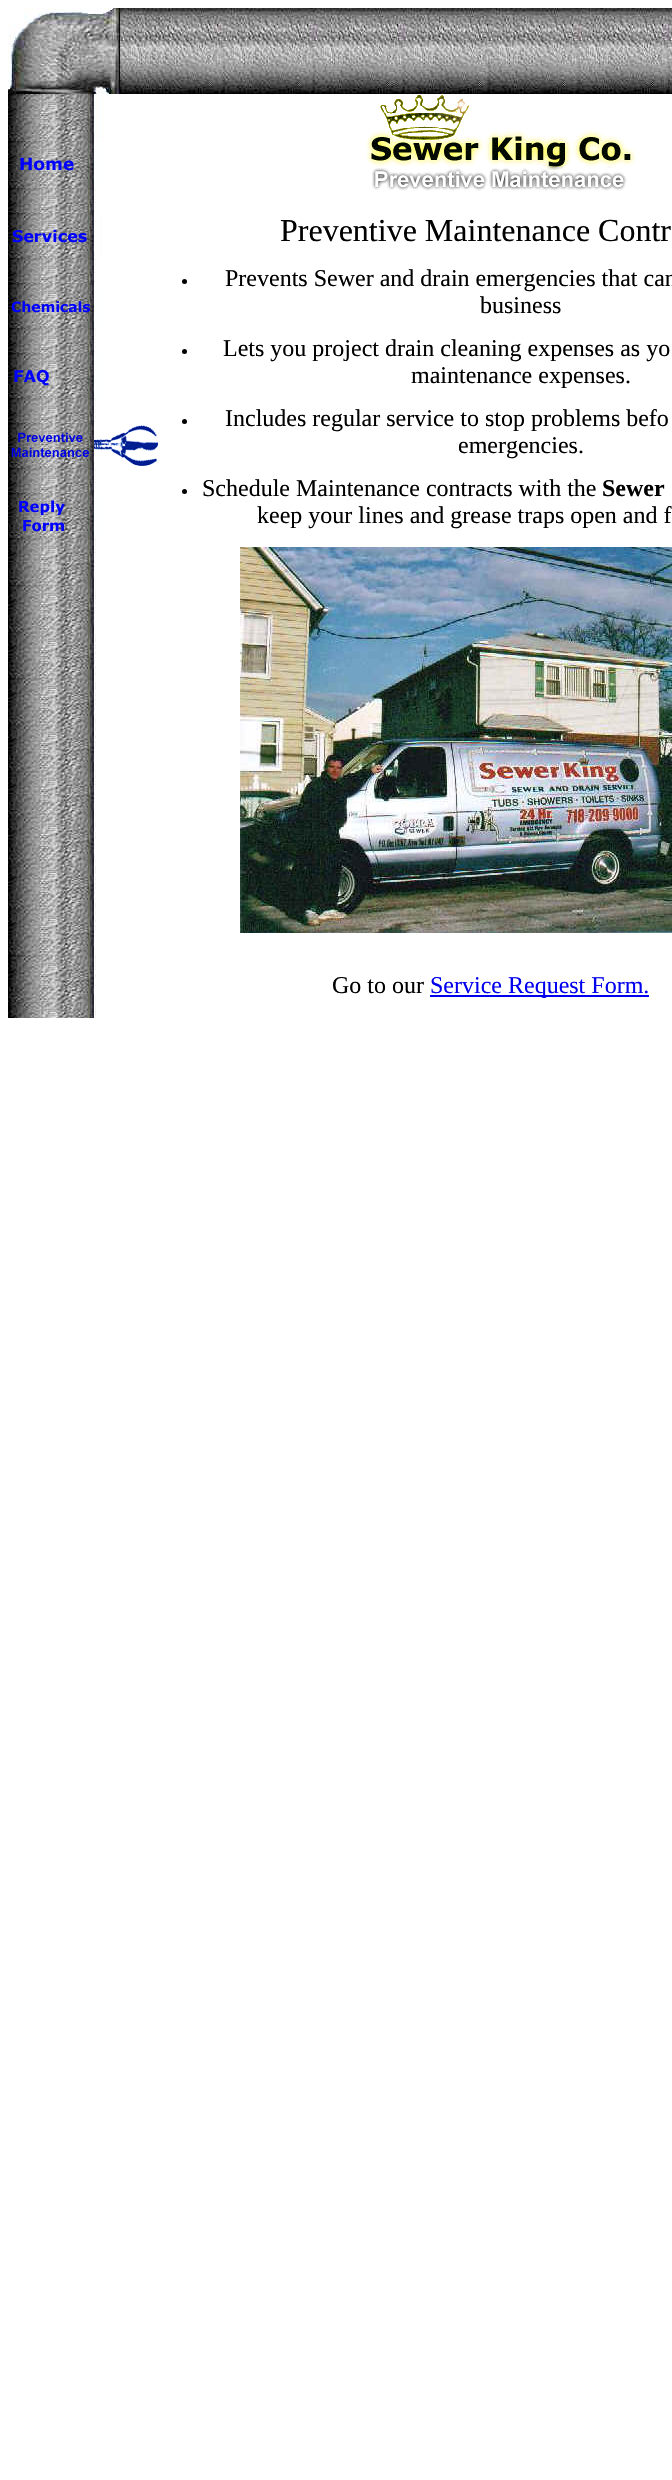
void draw(SkCanvas* canvas) {
	SkPaint fill;
	fill.setAntiAlias(true);
	auto makeFont = [&](const char* family, int weight, float size, bool italic = false) {
		SkFontStyle style(weight, SkFontStyle::kNormal_Width,
			italic ? SkFontStyle::kItalic_Slant : SkFontStyle::kUpright_Slant);
		SkFont result(fontMgr->matchFamilyStyle(family, style), size);
		result.setSubpixel(true);
		return result;
	};
	auto text = [&](const char* s, float x, float y, const SkFont& font) {
		canvas->drawString(s, x, y, font, fill);
	};
	auto box = [&](float l, float t, float r, float b) {
		canvas->drawRect(SkRect::MakeLTRB(l, t, r, b), fill);
	};
	auto picture = [&](const char* path, float l, float t, float r, float b) {
		auto image = SkImages::DeferredFromEncodedData(SkData::MakeFromFileName(path));
		canvas->drawImageRect(image, SkRect::MakeLTRB(l, t, r, b), SkSamplingOptions());
	};
	canvas->clear(0xFFFFFFFF);
	picture("image0.png", 8, 8, 158, 94);
	picture("image1.png", 8, 94, 104, 141);
	picture("image2.png", 8, 141, 102, 188);
	picture("image3.png", 8, 188, 96, 213);
	picture("image4.png", 8, 213, 102, 258);
	picture("image3.png", 8, 258, 96, 283);
	picture("image5.png", 8, 283, 102, 328);
	picture("image3.png", 8, 328, 96, 353);
	picture("image6.png", 8, 353, 102, 398);
	picture("image3.png", 8, 398, 96, 423);
	picture("image7.png", 8, 423, 158, 468);
	picture("image3.png", 8, 468, 96, 493);
	picture("image8.png", 8, 493, 102, 538);
	picture("image9.png", 8, 538, 96, 1018);
	picture("image10.png", 158, 8, 672, 94);
	picture("image11.png", 367, 95, 635, 191);
	fill.setColor(0xFF000000);
	canvas->drawCircle(184.5f, 281.5f, 2.5f, fill);
	canvas->drawCircle(184.5f, 351.5f, 2.5f, fill);
	canvas->drawCircle(184.5f, 421.5f, 2.5f, fill);
	canvas->drawCircle(184.5f, 491.5f, 2.5f, fill);
	picture("image12.png", 240, 547, 672, 933);
	fill.setColor(0xFF0000EE);
	box(430, 995, 649, 997);
	auto font1 = makeFont("Liberation Serif", 400, 32);
	fill.setColor(0xFF000000);
	text("Preventive Maintenance Contr", 280, 241, font1);
	auto font2 = makeFont("Liberation Serif", 400, 24);
	text("Prevents Sewer and drain emergencies that can", 225, 286, font2);
	text("business", 480, 313, font2);
	text("Lets you project drain cleaning expenses as yo", 223, 356, font2);
	text("maintenance expenses.", 411, 383, font2);
	text("Includes regular service to stop problems befo", 225, 426, font2);
	text("emergencies.", 458, 453, font2);
	text("Schedule Maintenance contracts with the", 202, 496, font2);
	auto font3 = makeFont("Liberation Serif", 700, 24);
	text("Sewer", 602, 496, font3);
	text("keep your lines and grease traps open and f", 257, 523, font2);
	text("Go to our", 332, 993, font2);
	fill.setColor(0xFF0000EE);
	text("Service Request Form.", 430, 993, font2);
}
